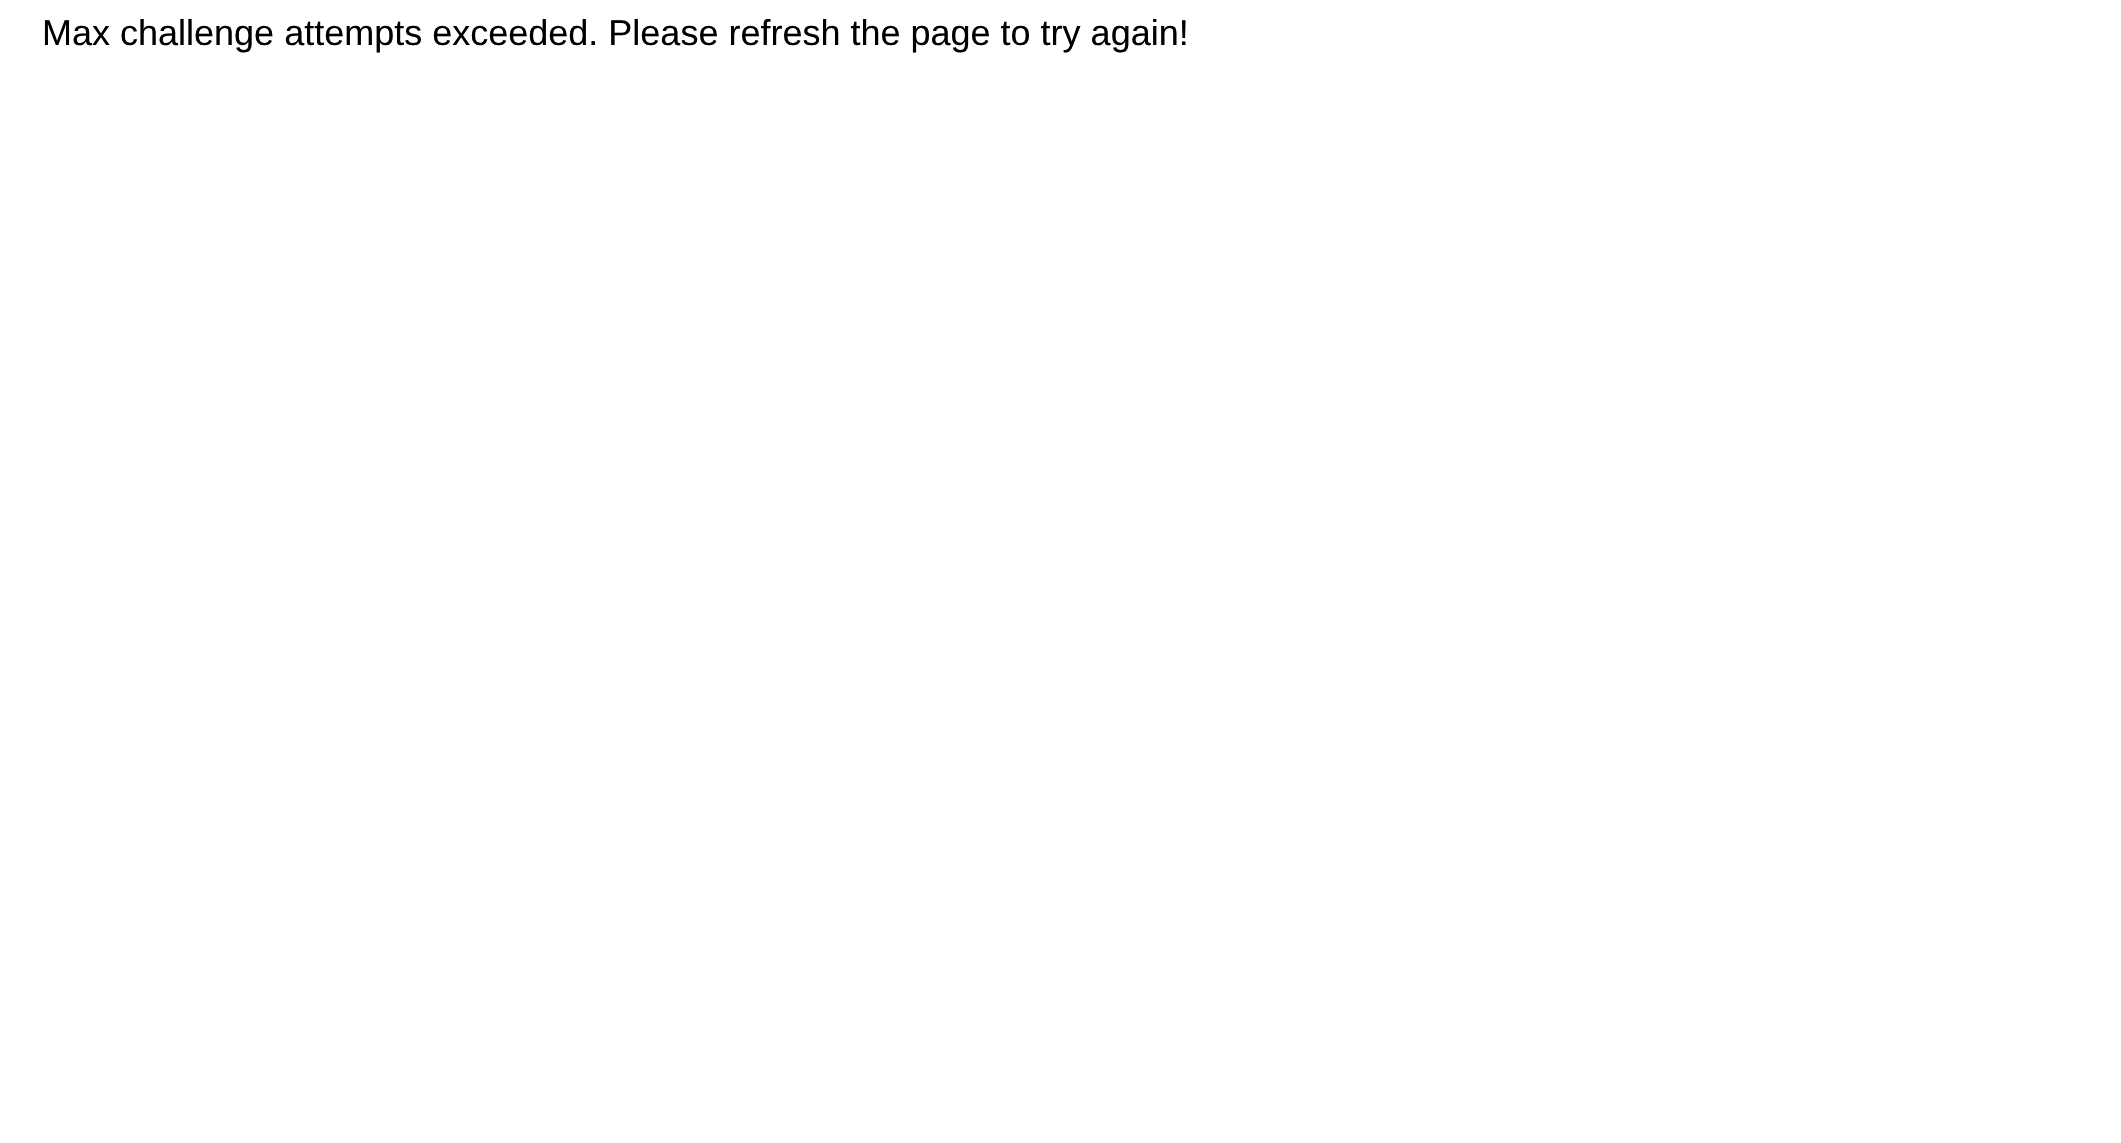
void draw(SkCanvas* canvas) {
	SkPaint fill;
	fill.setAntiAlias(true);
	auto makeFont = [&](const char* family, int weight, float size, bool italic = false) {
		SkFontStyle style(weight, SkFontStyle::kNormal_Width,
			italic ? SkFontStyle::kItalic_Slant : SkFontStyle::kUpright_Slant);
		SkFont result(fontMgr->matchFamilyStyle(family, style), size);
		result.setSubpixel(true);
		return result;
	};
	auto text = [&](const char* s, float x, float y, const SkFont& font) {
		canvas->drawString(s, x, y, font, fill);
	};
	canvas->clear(0xFFFFFFFF);
	auto font1 = makeFont("Liberation Sans", 400, 36);
	fill.setColor(0xFF000000);
	text("Max challenge attempts exceeded. Please refresh the page to try again!", 42, 45, font1);
}
